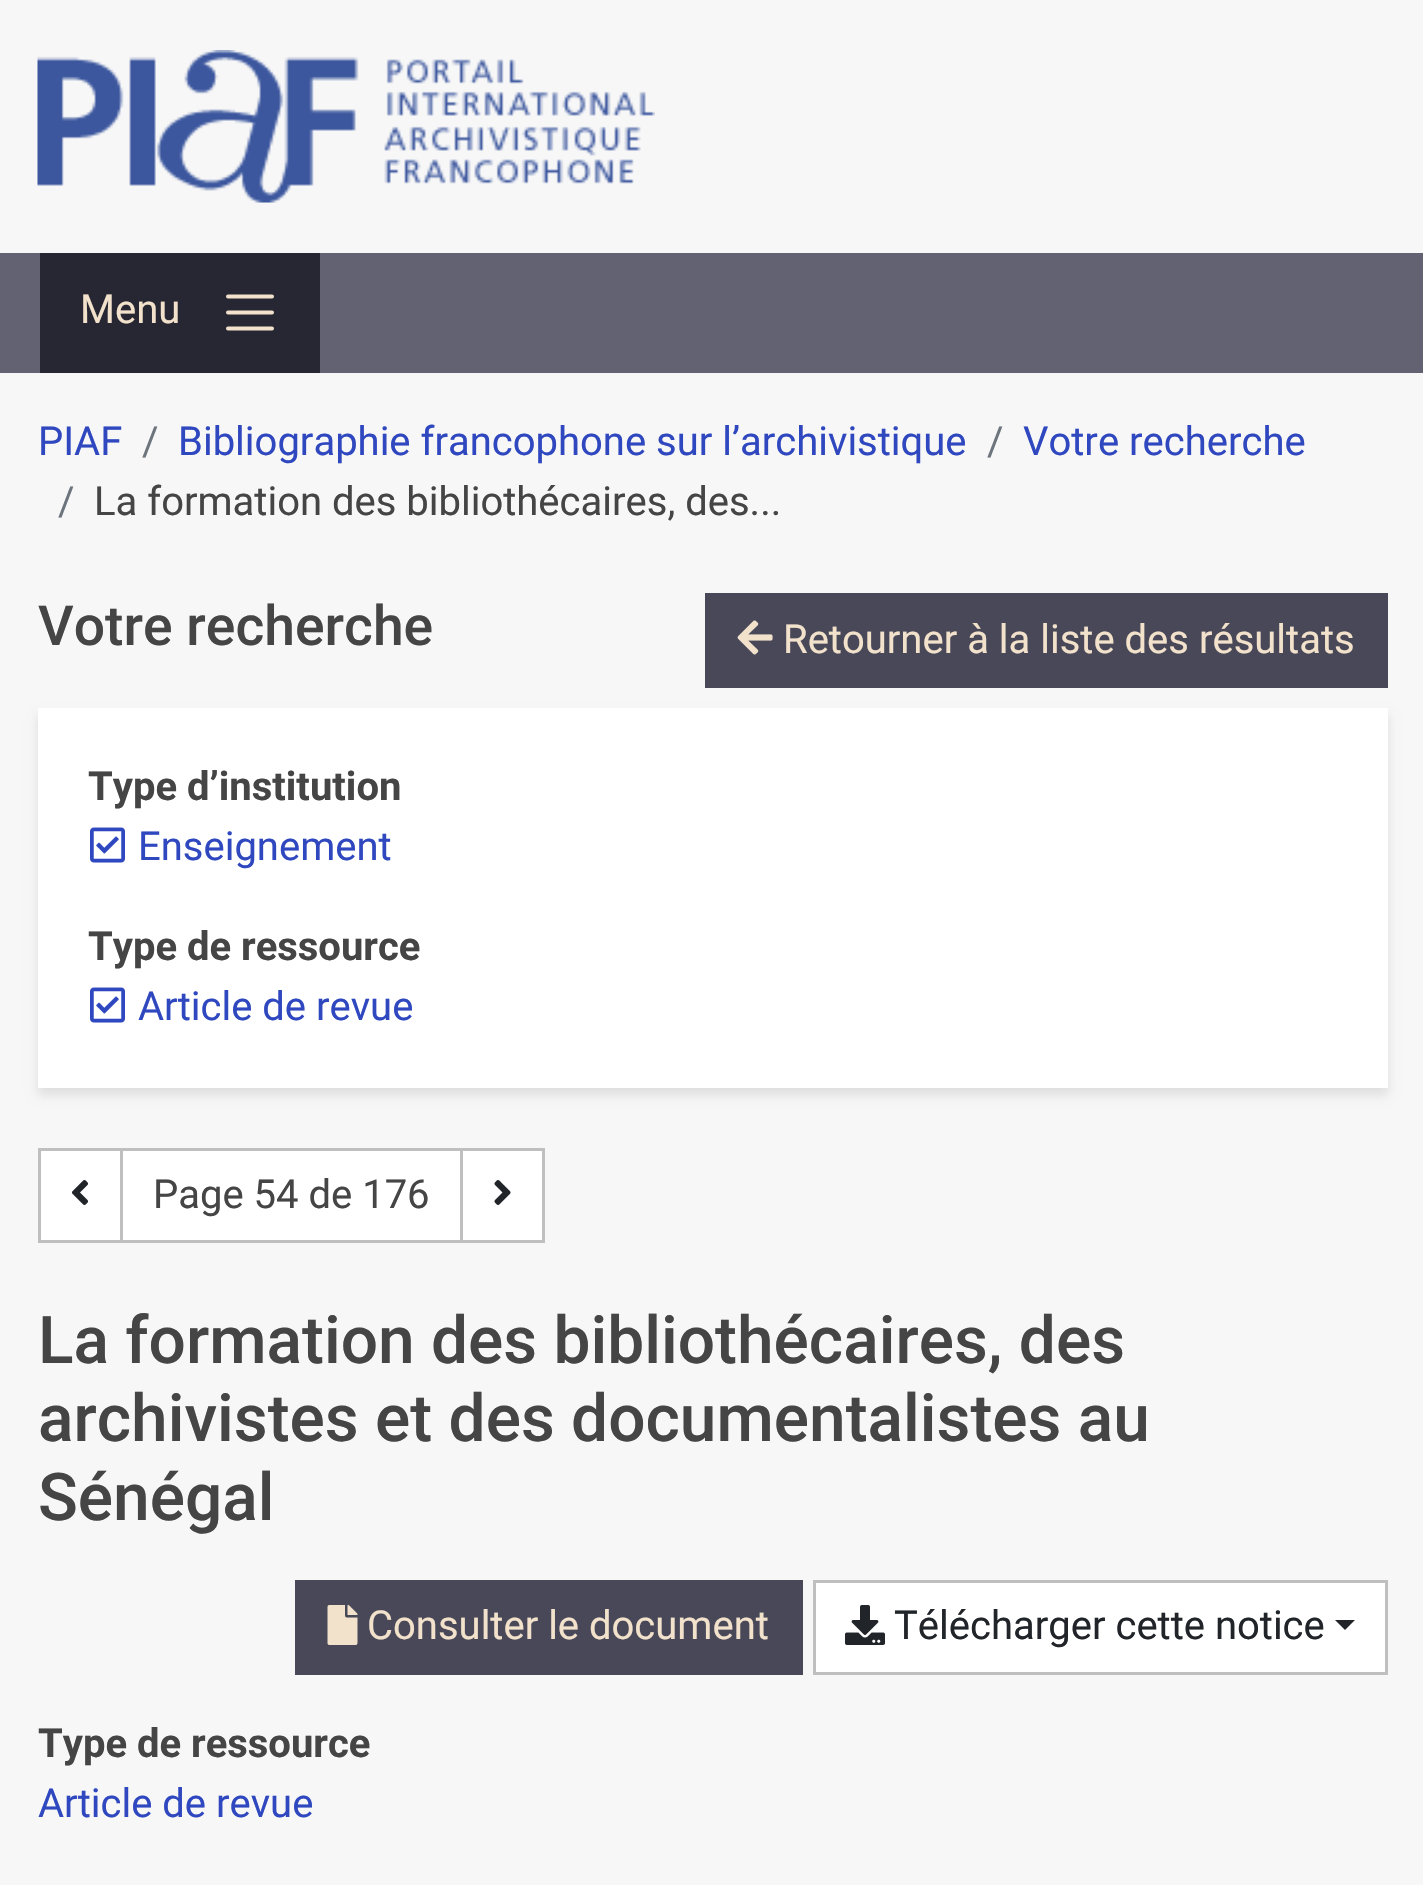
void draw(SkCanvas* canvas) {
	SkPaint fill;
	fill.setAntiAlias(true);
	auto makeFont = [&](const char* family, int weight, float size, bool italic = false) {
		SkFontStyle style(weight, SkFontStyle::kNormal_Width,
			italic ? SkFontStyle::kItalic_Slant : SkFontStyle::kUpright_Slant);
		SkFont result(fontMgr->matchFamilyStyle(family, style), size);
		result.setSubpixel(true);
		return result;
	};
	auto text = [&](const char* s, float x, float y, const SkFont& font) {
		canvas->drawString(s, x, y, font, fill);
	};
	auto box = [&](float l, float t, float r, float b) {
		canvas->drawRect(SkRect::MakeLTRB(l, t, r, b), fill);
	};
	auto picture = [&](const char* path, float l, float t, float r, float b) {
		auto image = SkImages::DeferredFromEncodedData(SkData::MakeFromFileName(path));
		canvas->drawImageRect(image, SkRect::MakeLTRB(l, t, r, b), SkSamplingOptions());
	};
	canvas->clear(0xFFF7F7F7);
	picture("image0.png", 37, 50, 655, 203);
	fill.setColor(0xFF626272);
	box(0, 253, 1423, 373);
	fill.setColor(0xFF272733);
	box(40, 253, 320, 373);
	fill.setStyle(SkPaint::kStroke_Style);
	fill.setStrokeWidth(4);
	fill.setStrokeCap(SkPaint::kRound_Cap);
	fill.setColor(0xFFF2E1CB);
	canvas->drawPath(SkPathBuilder().moveTo(228, 296.5f).lineTo(272, 296.5f).moveTo(228, 312.5f).lineTo(272, 312.5f).moveTo(228, 328.5f).lineTo(272, 328.5f).detach(), fill);
	fill.setStyle(SkPaint::kFill_Style);
	fill.setColor(0xFF484858);
	box(705, 593, 1388, 688);
	picture("image1.png", 737, 620, 773, 655);
	fill.setColor(0x1A000000);
	fill.setMaskFilter(SkMaskFilter::MakeBlur(kNormal_SkBlurStyle, 5));
	canvas->drawRect(SkRect::MakeLTRB(38, 715, 1388, 1095), fill);
	fill.setMaskFilter(nullptr);
	fill.setColor(0xFFFFFFFF);
	box(38, 708, 1388, 1088);
	picture("image2.png", 90, 827, 125, 863);
	picture("image2.png", 90, 987, 125, 1023);
	canvas->drawRect(SkRect::MakeLTRB(39.5f, 1149.5f, 121.5f, 1241.5f), fill);
	fill.setStyle(SkPaint::kStroke_Style);
	fill.setStrokeWidth(3);
	fill.setStrokeCap(SkPaint::kButt_Cap);
	fill.setColor(0xFFBFBFBF);
	canvas->drawRect(SkRect::MakeLTRB(39.5f, 1149.5f, 121.5f, 1241.5f), fill);
	picture("image3.png", 72, 1180, 88, 1205);
	fill.setStyle(SkPaint::kFill_Style);
	fill.setColor(0xFFFFFFFF);
	canvas->drawRect(SkRect::MakeLTRB(121.5f, 1149.5f, 461.5f, 1241.5f), fill);
	fill.setStyle(SkPaint::kStroke_Style);
	fill.setColor(0xFFBFBFBF);
	canvas->drawRect(SkRect::MakeLTRB(121.5f, 1149.5f, 461.5f, 1241.5f), fill);
	fill.setStyle(SkPaint::kFill_Style);
	fill.setColor(0xFFFFFFFF);
	canvas->drawRect(SkRect::MakeLTRB(461.5f, 1149.5f, 543.5f, 1241.5f), fill);
	fill.setStyle(SkPaint::kStroke_Style);
	fill.setColor(0xFFBFBFBF);
	canvas->drawRect(SkRect::MakeLTRB(461.5f, 1149.5f, 543.5f, 1241.5f), fill);
	picture("image4.png", 494, 1180, 511, 1205);
	fill.setStyle(SkPaint::kFill_Style);
	fill.setColor(0xFF484858);
	box(295, 1580, 803, 1675);
	picture("image5.png", 327, 1605, 358, 1645);
	fill.setColor(0xFFFFFFFF);
	canvas->drawRect(SkRect::MakeLTRB(814.5f, 1581.5f, 1386.5f, 1673.5f), fill);
	fill.setStyle(SkPaint::kStroke_Style);
	fill.setColor(0xFFBFBFBF);
	canvas->drawRect(SkRect::MakeLTRB(814.5f, 1581.5f, 1386.5f, 1673.5f), fill);
	picture("image6.png", 845, 1605, 885, 1645);
	fill.setStyle(SkPaint::kFill_Style);
	fill.setColor(0xFF212529);
	canvas->drawPath(SkPathBuilder().moveTo(1335, 1620).lineTo(1355, 1620).lineTo(1345, 1630).close().detach(), fill);
	auto font1 = makeFont("Roboto", 400, 40);
	fill.setColor(0xFFF2E1CB);
	text("Menu", 80, 323, font1);
	fill.setColor(0xFF3048BF);
	text("PIAF", 38, 455, font1);
	fill.setColor(0xFF6C757D);
	text("/", 142, 455, font1);
	fill.setColor(0xFF3048BF);
	text("Bibliographie francophone sur l’archivistique", 178, 455, font1);
	fill.setColor(0xFF6C757D);
	text("/", 987, 455, font1);
	fill.setColor(0xFF3048BF);
	text("Votre recherche", 1023, 455, font1);
	fill.setColor(0xFF6C757D);
	text("/", 58, 515, font1);
	fill.setColor(0xFF454545);
	text("La formation des bibliothécaires, des...", 94, 515, font1);
	auto font2 = makeFont("Roboto", 500, 55.25f);
	text("Votre recherche", 38, 645, font2);
	fill.setColor(0xFFF2E1CB);
	text("Retourner à la liste des résultats", 783, 653, font1);
	auto font3 = makeFont("Roboto", 700, 40);
	fill.setColor(0xFF454545);
	text("Type d’institution", 88, 800, font3);
	fill.setColor(0xFF3048BF);
	text("Enseignement", 138, 860, font1);
	fill.setColor(0xFF454545);
	text("Type de ressource", 88, 960, font3);
	fill.setColor(0xFF3048BF);
	text("Article de revue", 138, 1020, font1);
	fill.setColor(0xFF454545);
	text("Page 54 de 176", 153, 1208, font1);
	auto font4 = makeFont("Roboto", 500, 65.8f);
	text("La formation des bibliothécaires, des", 38, 1363, font4);
	text("archivistes et des documentalistes au", 38, 1441, font4);
	text("Sénégal", 38, 1520, font4);
	fill.setColor(0xFFF2E1CB);
	text("Consulter le document", 367, 1639, font1);
	fill.setColor(0xFF212529);
	text("Télécharger cette notice", 894, 1639, font1);
	fill.setColor(0xFF454545);
	text("Type de ressource", 38, 1757, font3);
	fill.setColor(0xFF3048BF);
	text("Article de revue", 38, 1817, font1);
}
